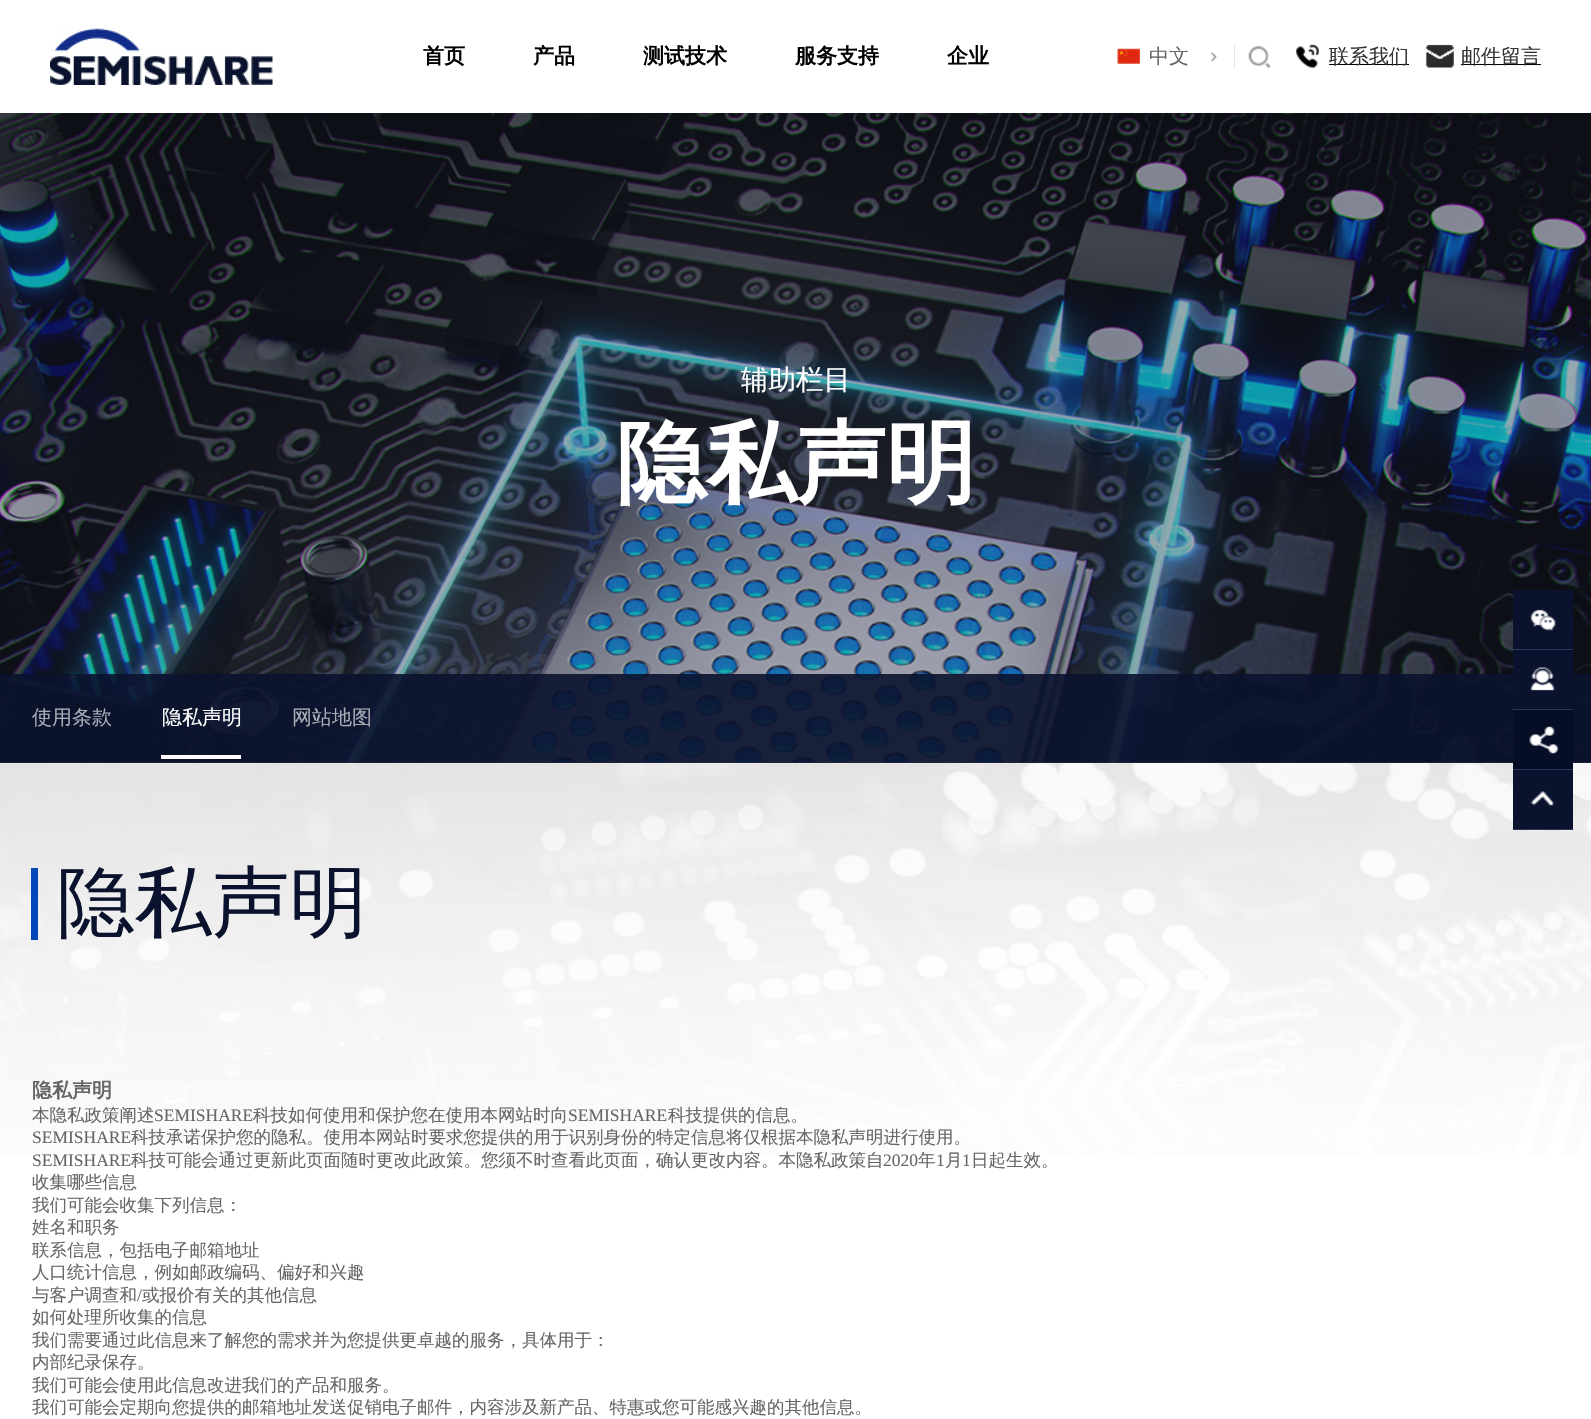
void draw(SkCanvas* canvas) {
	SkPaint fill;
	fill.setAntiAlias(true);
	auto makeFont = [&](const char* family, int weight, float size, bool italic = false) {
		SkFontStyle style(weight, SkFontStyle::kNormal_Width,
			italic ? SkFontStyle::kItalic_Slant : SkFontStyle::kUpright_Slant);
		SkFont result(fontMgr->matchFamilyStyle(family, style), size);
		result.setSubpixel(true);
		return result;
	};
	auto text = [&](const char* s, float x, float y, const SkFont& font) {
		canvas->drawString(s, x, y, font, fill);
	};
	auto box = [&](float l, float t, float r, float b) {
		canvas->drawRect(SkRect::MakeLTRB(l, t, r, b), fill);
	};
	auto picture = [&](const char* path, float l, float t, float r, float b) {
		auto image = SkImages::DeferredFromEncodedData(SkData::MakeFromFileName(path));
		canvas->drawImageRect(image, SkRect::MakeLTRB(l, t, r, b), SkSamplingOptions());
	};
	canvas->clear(0xFFFFFFFF);
	picture("image0.png", 50, 28, 273, 85);
	picture("image1.png", 1117, 48, 1140, 64);
	picture("image2.png", 1211, 52, 1217, 62);
	fill.setColor(0xFFE5E5E5);
	box(1234, 44, 1235, 69);
	picture("image3.png", 1248, 46, 1270, 68);
	picture("image4.png", 1296, 44, 1319, 68);
	fill.setColor(0xFF000000);
	box(1329, 64, 1409, 65);
	picture("image5.png", 1426, 44, 1454, 68);
	box(1461, 64, 1541, 65);
	fill.setColor(0xFFF0F0F0);
	box(0, 762, 1591, 763);
	picture("image6.png", 0, 113, 1591, 763);
	fill.setColor(0xE60A122E);
	box(0, 674, 1591, 763);
	fill.setColor(0xFFFFFFFF);
	box(161, 755, 241, 759);
	fill.setColor(0xFF0A122E);
	box(1513, 590, 1573, 649);
	picture("image7.png", 1530, 609, 1556, 631);
	fill.setColor(0xFF2A355D);
	box(1513, 649, 1573, 650);
	fill.setColor(0xFF0A122E);
	box(1513, 650, 1573, 703);
	picture("image8.png", 1530, 667, 1555, 691);
	fill.setColor(0xFF2A355D);
	box(1513, 709, 1573, 710);
	picture("image11.png", 0, 763, 1591, 1155);
	fill.setColor(0xFF060E27);
	box(1513, 710, 1573, 769);
	picture("image9.png", 1529, 726, 1559, 754);
	fill.setColor(0xFF2A355D);
	box(1513, 769, 1573, 770);
	fill.setColor(0xFF0A122E);
	box(1513, 770, 1573, 829);
	picture("image10.png", 1530, 791, 1555, 806);
	fill.setColor(0xFF2A355D);
	box(1513, 829, 1573, 830);
	fill.setColor(0xFF0047BA);
	box(31, 868, 38, 940);
	auto font1 = makeFont("WenQuanYi Zen Hei", 700, 21);
	fill.setColor(0xFF000000);
	text("首页", 423, 63, font1);
	text("产品", 533, 63, font1);
	text("测试技术", 643, 63, font1);
	text("服务支持", 795, 63, font1);
	text("企业", 947, 63, font1);
	auto font2 = makeFont("WenQuanYi Zen Hei", 500, 20);
	fill.setColor(0xFF666666);
	text("中文", 1149, 63, font2);
	fill.setColor(0xFF333333);
	text("联系我们", 1329, 63, font2);
	text("邮件留言", 1461, 63, font2);
	auto font3 = makeFont("WenQuanYi Zen Hei", 500, 27.5f);
	fill.setColor(0xFFFFFFFF);
	text("辅助栏目", 741, 389, font3);
	auto font4 = makeFont("WenQuanYi Zen Hei", 700, 90);
	text("隐私声明", 616, 494, font4);
	fill.setColor(0xFFA9ACB5);
	text("使用条款", 32, 724, font2);
	fill.setColor(0xFFFFFFFF);
	text("隐私声明", 162, 724, font2);
	fill.setColor(0xFFA9ACB5);
	text("网站地图", 292, 724, font2);
	auto font5 = makeFont("WenQuanYi Zen Hei", 500, 77.5f);
	fill.setColor(0xFF0A122E);
	text("隐私声明", 57, 929, font5);
	auto font6 = makeFont("WenQuanYi Zen Hei", 700, 20);
	fill.setColor(0xFF666666);
	text("隐私声明", 32, 1097, font6);
	auto font7 = makeFont("WenQuanYi Zen Hei", 500, 17.5f);
	text("本隐私政策阐述", 32, 1121, font7);
	auto font8 = makeFont("Liberation Serif", 400, 17.5f);
	text("SEMISHARE", 154, 1121, font8);
	text("科技如何使用和保护您在使用本网站时向", 253, 1121, font7);
	text("SEMISHARE", 568, 1121, font8);
	text("科技提供的信息。", 668, 1121, font7);
	text("SEMISHARE", 32, 1143, font8);
	text("科技承诺保护您的隐私。使用本网站时要求您提供的用于识别身份的特定信息将仅根据本隐私声明进行使用。", 131, 1143, font7);
	text("SEMISHARE", 32, 1166, font8);
	text("科技可能会通过更新此页面随时更改此政策。您须不时查看此页面，确认更改内容。本隐私政策自", 131, 1166, font7);
	text("2020", 883, 1166, font8);
	text("年", 918, 1166, font7);
	text("1", 936, 1166, font8);
	text("月", 945, 1166, font7);
	text("1", 962, 1166, font8);
	text("日起生效。", 971, 1166, font7);
	text("收集哪些信息", 32, 1188, font7);
	text("我们可能会收集下列信息：", 32, 1211, font7);
	text("姓名和职务", 32, 1233, font7);
	text("联系信息，包括电子邮箱地址", 32, 1256, font7);
	text("人口统计信息，例如邮政编码、偏好和兴趣", 32, 1278, font7);
	text("与客户调查和", 32, 1301, font7);
	text("/", 137, 1301, font8);
	text("或报价有关的其他信息", 142, 1301, font7);
	text("如何处理所收集的信息", 32, 1323, font7);
	text("我们需要通过此信息来了解您的需求并为您提供更卓越的服务，具体用于：", 32, 1346, font7);
	text("内部纪录保存。", 32, 1368, font7);
	text("我们可能会使用此信息改进我们的产品和服务。", 32, 1391, font7);
	text("我们可能会定期向您提供的邮箱地址发送促销电子邮件，内容涉及新产品、特惠或您可能感兴趣的其他信息。", 32, 1413, font7);
}
